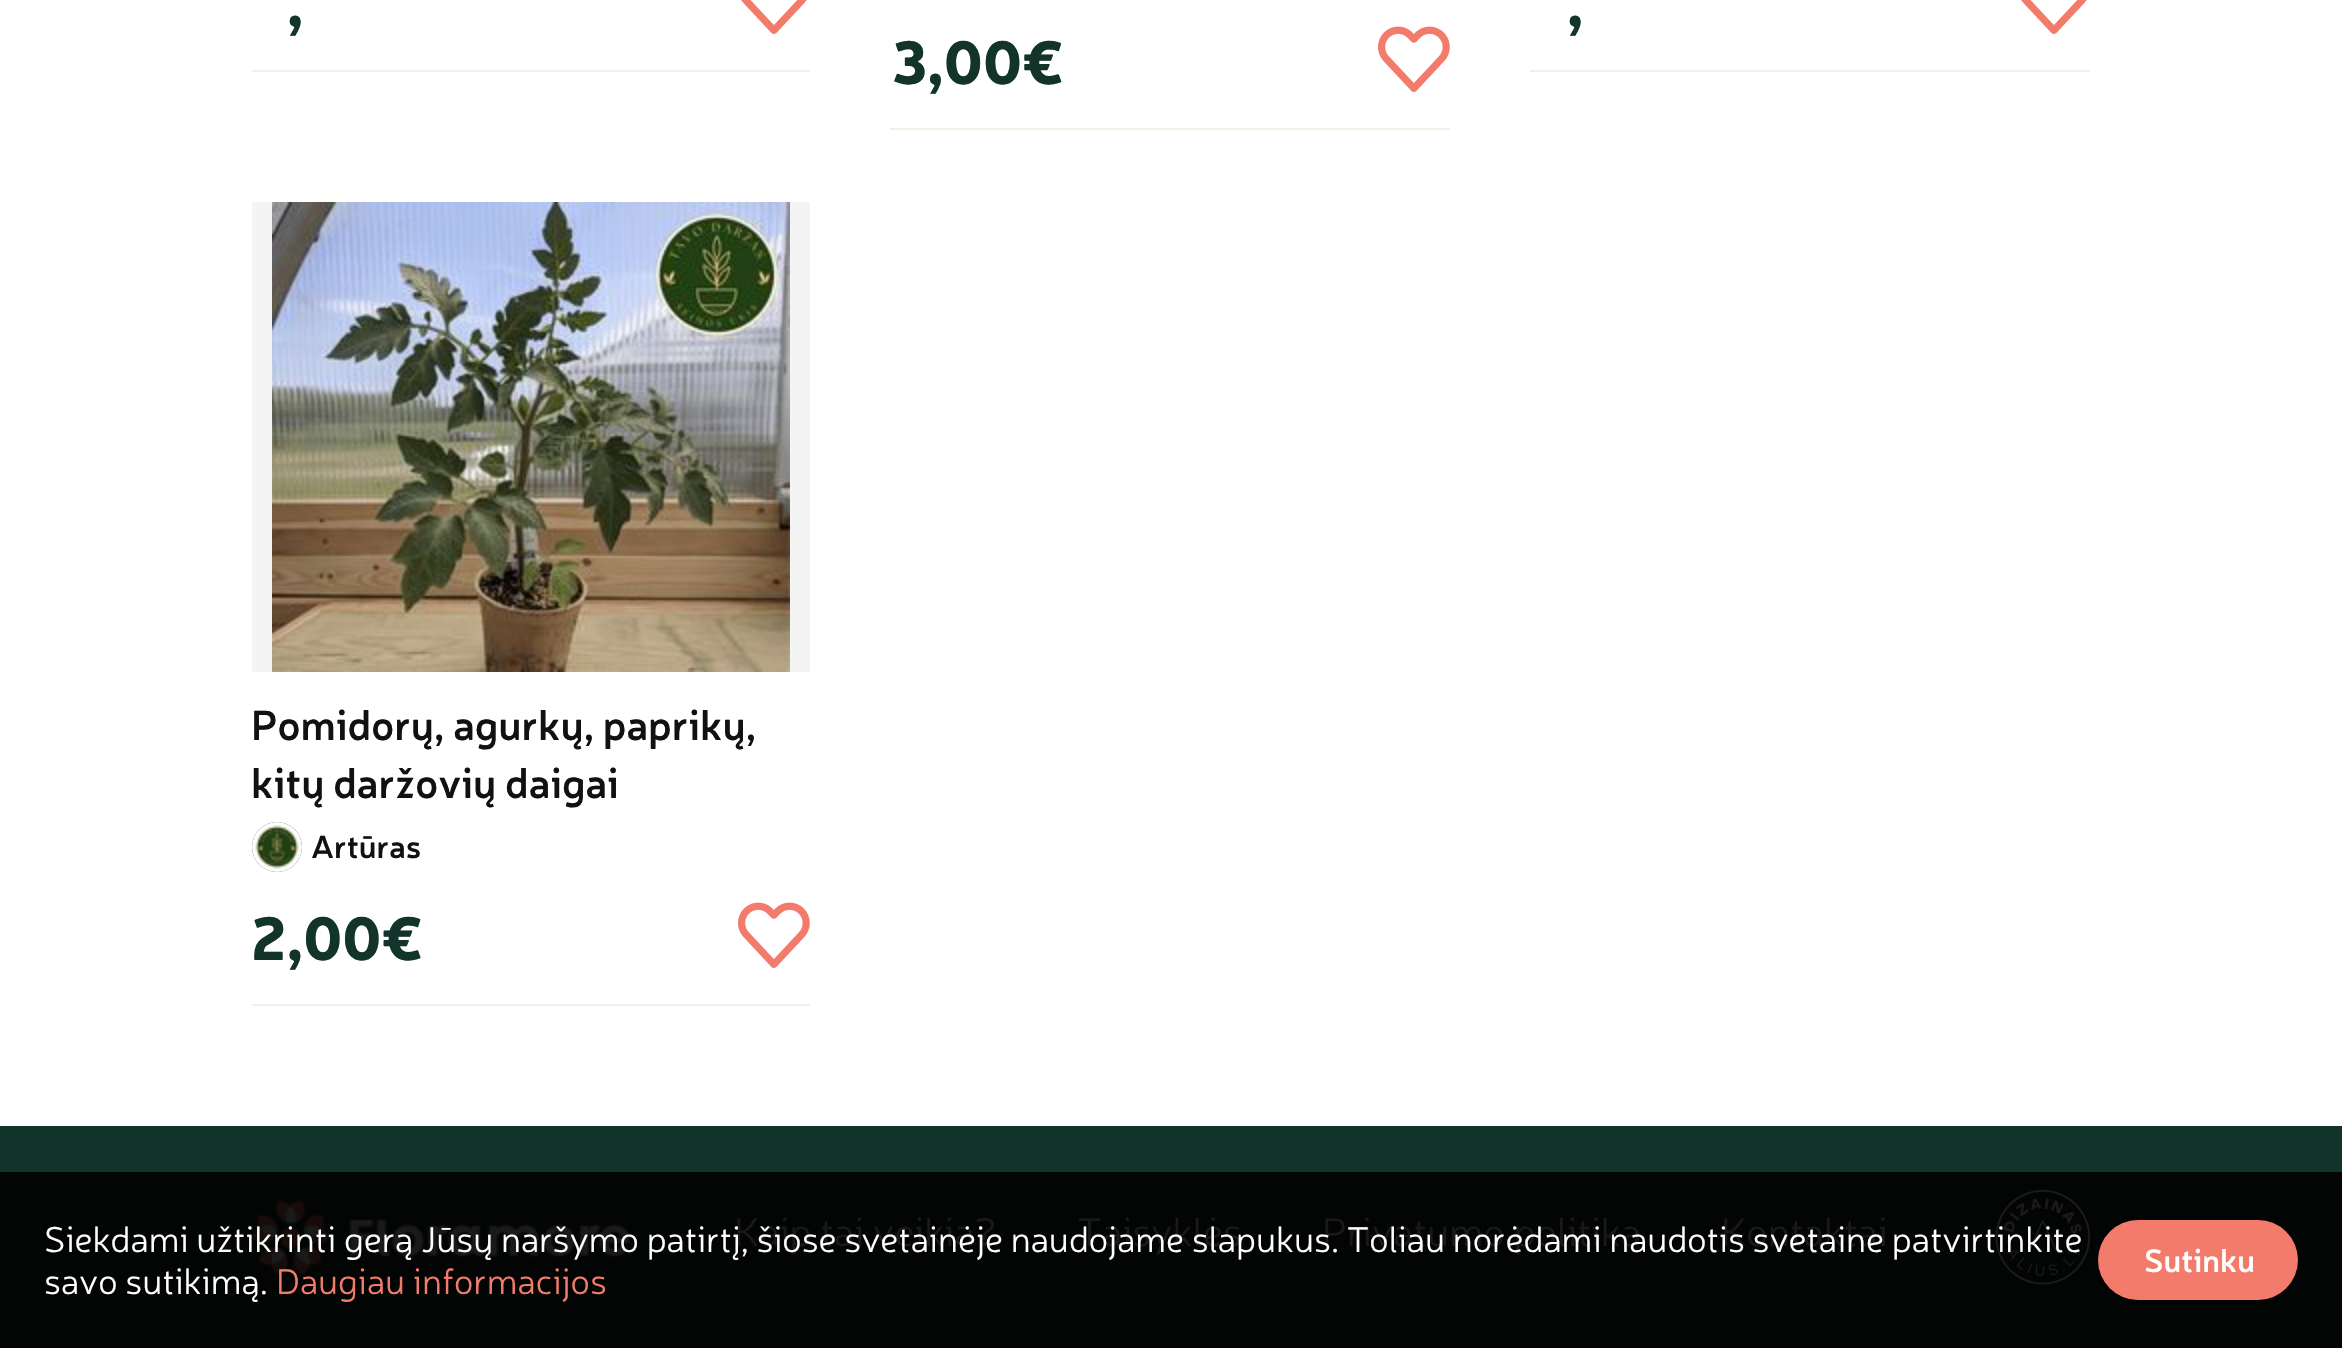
void draw(SkCanvas* canvas) {
	SkPaint fill;
	fill.setAntiAlias(true);
	auto makeFont = [&](const char* family, int weight, float size, bool italic = false) {
		SkFontStyle style(weight, SkFontStyle::kNormal_Width,
			italic ? SkFontStyle::kItalic_Slant : SkFontStyle::kUpright_Slant);
		SkFont result(fontMgr->matchFamilyStyle(family, style), size);
		result.setSubpixel(true);
		return result;
	};
	auto text = [&](const char* s, float x, float y, const SkFont& font) {
		canvas->drawString(s, x, y, font, fill);
	};
	auto box = [&](float l, float t, float r, float b) {
		canvas->drawRect(SkRect::MakeLTRB(l, t, r, b), fill);
	};
	auto roundBox = [&](float l, float t, float r, float b, float radius) {
		canvas->drawRoundRect(SkRect::MakeLTRB(l, t, r, b), radius, radius, fill);
	};
	auto picture = [&](const char* path, float l, float t, float r, float b) {
		auto image = SkImages::DeferredFromEncodedData(SkData::MakeFromFileName(path));
		canvas->drawImageRect(image, SkRect::MakeLTRB(l, t, r, b), SkSamplingOptions());
	};
	canvas->clear(0xFFFFFFFF);
	fill.setColor(0xFFEAF4E4);
	box(252, 70, 810, 72);
	picture("image0.png", 741, 0, 807, 34);
	box(1530, 70, 2090, 72);
	picture("image0.png", 2021, 0, 2087, 34);
	box(890, 128, 1450, 130);
	picture("image1.png", 1378, 26, 1450, 92);
	box(252, 1004, 810, 1006);
	fill.setColor(0xFFF4F4F4);
	box(252, 202, 810, 672);
	picture("image2.png", 272, 202, 790, 672);
	fill.setColor(0xFF204137);
	canvas->drawCircle(277, 847, 25, fill);
	picture("image3.png", 252, 822, 302, 872);
	picture("image1.png", 738, 902, 810, 968);
	fill.setColor(0xFF13342B);
	box(0, 1126, 2342, 1172);
	fill.setColor(0xFF020504);
	box(0, 1172, 2342, 1348);
	picture("image4.png", 252, 1200, 630, 1276);
	picture("image5.png", 1995, 1189, 2091, 1285);
	fill.setColor(0xFFF27B6B);
	roundBox(2098, 1220, 2298, 1300, 40);
	auto font1 = makeFont("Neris", 900, 60);
	fill.setColor(0xFF13342B);
	text(",", 287, 26, font1);
	text(",", 1567, 26, font1);
	text("3,00€", 891, 84, font1);
	auto font2 = makeFont("Neris", 600, 42);
	fill.setColor(0xFF111111);
	text("Pomidorų, agurkų, paprikų,", 251, 740, font2);
	text("kitų daržovių daigai", 251, 798, font2);
	auto font3 = makeFont("Neris", 600, 32);
	text("Artūras", 311, 858, font3);
	fill.setColor(0xFF13342B);
	text("2,00€", 251, 960, font1);
	auto font4 = makeFont("Neris", 300, 40);
	fill.setColor(0xFF191919);
	text("Kaip tai veikia?", 734, 1246, font4);
	text("Taisyklės", 1077, 1246, font4);
	text("Privatumo politika", 1322, 1246, font4);
	text("Kontaktai", 1721, 1246, font4);
	auto font5 = makeFont("Neris", 300, 36);
	fill.setColor(0xFFFFFFFF);
	text("Siekdami užtikrinti gerą Jūsų naršymo patirtį, šiose svetainėje naudojame slapukus. Toliau norėdami naudotis svetaine patvirtinkite", 44, 1252, font5);
	text("savo sutikimą.", 44, 1294, font5);
	fill.setColor(0xFFF27B6B);
	text("Daugiau informacijos", 276, 1294, font5);
	fill.setColor(0xFFFFFFFF);
	text("Sutinku", 2144, 1272, font3);
}
